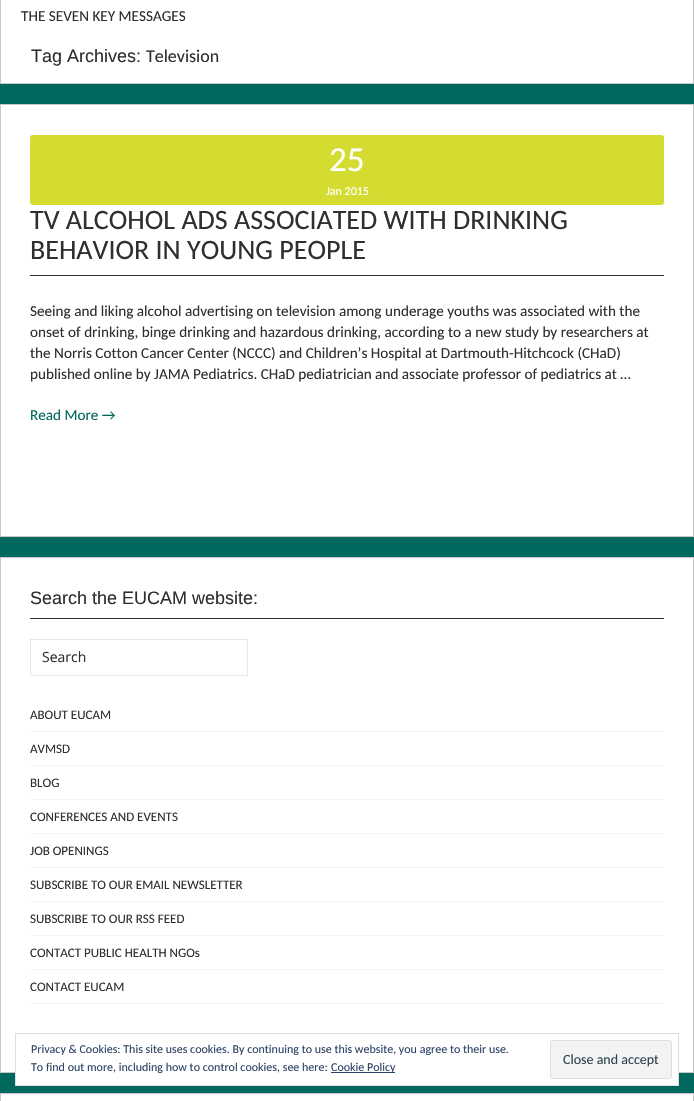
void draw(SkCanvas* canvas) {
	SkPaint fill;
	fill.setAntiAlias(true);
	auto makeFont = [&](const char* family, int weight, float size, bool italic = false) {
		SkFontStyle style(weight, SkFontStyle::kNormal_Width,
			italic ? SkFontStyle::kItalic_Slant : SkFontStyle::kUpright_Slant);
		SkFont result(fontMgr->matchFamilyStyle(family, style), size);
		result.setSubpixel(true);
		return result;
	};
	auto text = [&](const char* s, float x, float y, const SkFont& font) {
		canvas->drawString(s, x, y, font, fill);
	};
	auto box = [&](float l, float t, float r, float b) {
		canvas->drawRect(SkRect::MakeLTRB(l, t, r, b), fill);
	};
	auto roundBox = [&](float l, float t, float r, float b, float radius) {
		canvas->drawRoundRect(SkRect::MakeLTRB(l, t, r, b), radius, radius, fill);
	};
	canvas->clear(0xFF00685C);
	fill.setColor(0xFFFFFFFF);
	canvas->drawRect(SkRect::MakeLTRB(0.5f, -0.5f, 693.5f, 83.5f), fill);
	fill.setStyle(SkPaint::kStroke_Style);
	fill.setStrokeWidth(1);
	fill.setColor(0xFFC8C8C8);
	canvas->drawRect(SkRect::MakeLTRB(0.5f, -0.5f, 693.5f, 83.5f), fill);
	fill.setStyle(SkPaint::kFill_Style);
	fill.setColor(0xFFFFFFFF);
	canvas->drawRect(SkRect::MakeLTRB(0.5f, 104.5f, 693.5f, 536.5f), fill);
	fill.setStyle(SkPaint::kStroke_Style);
	fill.setColor(0xFFC8C8C8);
	canvas->drawRect(SkRect::MakeLTRB(0.5f, 104.5f, 693.5f, 536.5f), fill);
	fill.setStyle(SkPaint::kFill_Style);
	fill.setColor(0xFFD4DC31);
	roundBox(30, 135, 664, 205, 3);
	fill.setColor(0xFF2F2F2F);
	box(30, 275, 664, 276);
	fill.setColor(0xFFFFFFFF);
	canvas->drawRect(SkRect::MakeLTRB(0.5f, 557.5f, 693.5f, 1072.5f), fill);
	fill.setStyle(SkPaint::kStroke_Style);
	fill.setColor(0xFFC8C8C8);
	canvas->drawRect(SkRect::MakeLTRB(0.5f, 557.5f, 693.5f, 1072.5f), fill);
	fill.setStyle(SkPaint::kFill_Style);
	fill.setColor(0xFF2F2F2F);
	box(30, 618, 664, 619);
	fill.setStyle(SkPaint::kStroke_Style);
	fill.setColor(0xFFE7E7E7);
	canvas->drawRect(SkRect::MakeLTRB(30.5f, 639.5f, 247.5f, 675.5f), fill);
	fill.setPathEffect(SkDashPathEffect::Make({{1, 1}}, 0));
	canvas->drawPath(SkPathBuilder().moveTo(30, 731.5f).lineTo(664, 731.5f).detach(), fill);
	fill.setPathEffect(nullptr);
	fill.setPathEffect(SkDashPathEffect::Make({{1, 1}}, 0));
	canvas->drawPath(SkPathBuilder().moveTo(30, 765.5f).lineTo(664, 765.5f).detach(), fill);
	fill.setPathEffect(nullptr);
	fill.setPathEffect(SkDashPathEffect::Make({{1, 1}}, 0));
	canvas->drawPath(SkPathBuilder().moveTo(30, 799.5f).lineTo(664, 799.5f).detach(), fill);
	fill.setPathEffect(nullptr);
	fill.setPathEffect(SkDashPathEffect::Make({{1, 1}}, 0));
	canvas->drawPath(SkPathBuilder().moveTo(30, 833.5f).lineTo(664, 833.5f).detach(), fill);
	fill.setPathEffect(nullptr);
	fill.setPathEffect(SkDashPathEffect::Make({{1, 1}}, 0));
	canvas->drawPath(SkPathBuilder().moveTo(30, 867.5f).lineTo(664, 867.5f).detach(), fill);
	fill.setPathEffect(nullptr);
	fill.setPathEffect(SkDashPathEffect::Make({{1, 1}}, 0));
	canvas->drawPath(SkPathBuilder().moveTo(30, 901.5f).lineTo(664, 901.5f).detach(), fill);
	fill.setPathEffect(nullptr);
	fill.setPathEffect(SkDashPathEffect::Make({{1, 1}}, 0));
	canvas->drawPath(SkPathBuilder().moveTo(30, 935.5f).lineTo(664, 935.5f).detach(), fill);
	fill.setPathEffect(nullptr);
	fill.setPathEffect(SkDashPathEffect::Make({{1, 1}}, 0));
	canvas->drawPath(SkPathBuilder().moveTo(30, 969.5f).lineTo(664, 969.5f).detach(), fill);
	fill.setPathEffect(nullptr);
	fill.setPathEffect(SkDashPathEffect::Make({{1, 1}}, 0));
	canvas->drawPath(SkPathBuilder().moveTo(30, 1003.5f).lineTo(664, 1003.5f).detach(), fill);
	fill.setPathEffect(nullptr);
	fill.setStyle(SkPaint::kFill_Style);
	fill.setColor(0xFFFFFFFF);
	canvas->drawRect(SkRect::MakeLTRB(0.5f, 1093.5f, 693.5f, 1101.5f), fill);
	fill.setStyle(SkPaint::kStroke_Style);
	fill.setColor(0xFFC8C8C8);
	canvas->drawRect(SkRect::MakeLTRB(0.5f, 1093.5f, 693.5f, 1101.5f), fill);
	fill.setStyle(SkPaint::kFill_Style);
	fill.setColor(0xFFFFFFFF);
	box(16, 1072, 678, 1085);
	fill.setStyle(SkPaint::kStroke_Style);
	fill.setColor(0xFFDEDEDE);
	canvas->drawRect(SkRect::MakeLTRB(15.5f, 1033.5f, 678.5f, 1085.5f), fill);
	fill.setStyle(SkPaint::kFill_Style);
	fill.setColor(0xFF2E4467);
	box(331, 1072, 395, 1073);
	fill.setColor(0xFFF3F3F3);
	canvas->drawRoundRect(SkRect::MakeLTRB(550.5f, 1040.5f, 671.5f, 1078.5f), 2.5f, 2.5f, fill);
	fill.setStyle(SkPaint::kStroke_Style);
	fill.setColor(0xFFDEDEDE);
	canvas->drawRoundRect(SkRect::MakeLTRB(550.5f, 1040.5f, 671.5f, 1078.5f), 2.5f, 2.5f, fill);
	auto font1 = makeFont("Carlito", 400, 15.2f);
	fill.setStyle(SkPaint::kFill_Style);
	fill.setColor(0xFF2F2F2F);
	text("THE SEVEN KEY MESSAGES", 21, 21, font1);
	auto font2 = makeFont("Liberation Sans", 400, 18);
	text("Tag Archives:", 31, 62, font2);
	auto font3 = makeFont("Carlito", 400, 18);
	text("Television", 146, 62, font3);
	auto font4 = makeFont("Carlito", 400, 35);
	fill.setColor(0xFFFFFFFF);
	text("25", 329, 171, font4);
	auto font5 = makeFont("Carlito", 400, 12);
	text("Jan 2015", 326, 195, font5);
	auto font6 = makeFont("Carlito", 400, 28);
	fill.setColor(0xFF2F2F2F);
	text("TV ALCOHOL ADS ASSOCIATED WITH DRINKING", 30, 229, font6);
	text("BEHAVIOR IN YOUNG PEOPLE", 30, 259, font6);
	text("Seeing and liking alcohol advertising on television among underage youths was associated with the", 30, 316, font1);
	text("onset of drinking, binge drinking and hazardous drinking, according to a new study by researchers at", 30, 337, font1);
	text("the Norris Cotton Cancer Center (NCCC) and Children’s Hospital at Dartmouth-Hitchcock (CHaD)", 30, 358, font1);
	text("published online by JAMA Pediatrics. CHaD pediatrician and associate professor of pediatrics at …", 30, 379, font1);
	fill.setColor(0xFF00685C);
	text("Read More →", 30, 420, font1);
	fill.setColor(0xFF2F2F2F);
	text("Search the EUCAM website:", 30, 604, font2);
	auto font7 = makeFont("Open Sans", 400, 14);
	text("Search", 42, 662, font7);
	auto font8 = makeFont("Carlito", 400, 13);
	text("ABOUT EUCAM", 30, 719, font8);
	text("AVMSD", 30, 753, font8);
	text("BLOG", 30, 787, font8);
	text("CONFERENCES AND EVENTS", 30, 821, font8);
	text("JOB OPENINGS", 30, 855, font8);
	text("SUBSCRIBE TO OUR EMAIL NEWSLETTER", 30, 889, font8);
	text("SUBSCRIBE TO OUR RSS FEED", 30, 923, font8);
	text("CONTACT PUBLIC HEALTH NGOs", 30, 957, font8);
	text("CONTACT EUCAM", 30, 991, font8);
	fill.setColor(0xFF2E4467);
	text("Privacy & Cookies: This site uses cookies. By continuing to use this website, you agree to their use.", 31, 1053, font5);
	text("To find out more, including how to control cookies, see here:", 31, 1071, font5);
	text("Cookie Policy", 331, 1071, font5);
	auto font9 = makeFont("Carlito", 400, 14);
	fill.setColor(0xFF2E4453);
	text("Close and accept", 563, 1064, font9);
}
